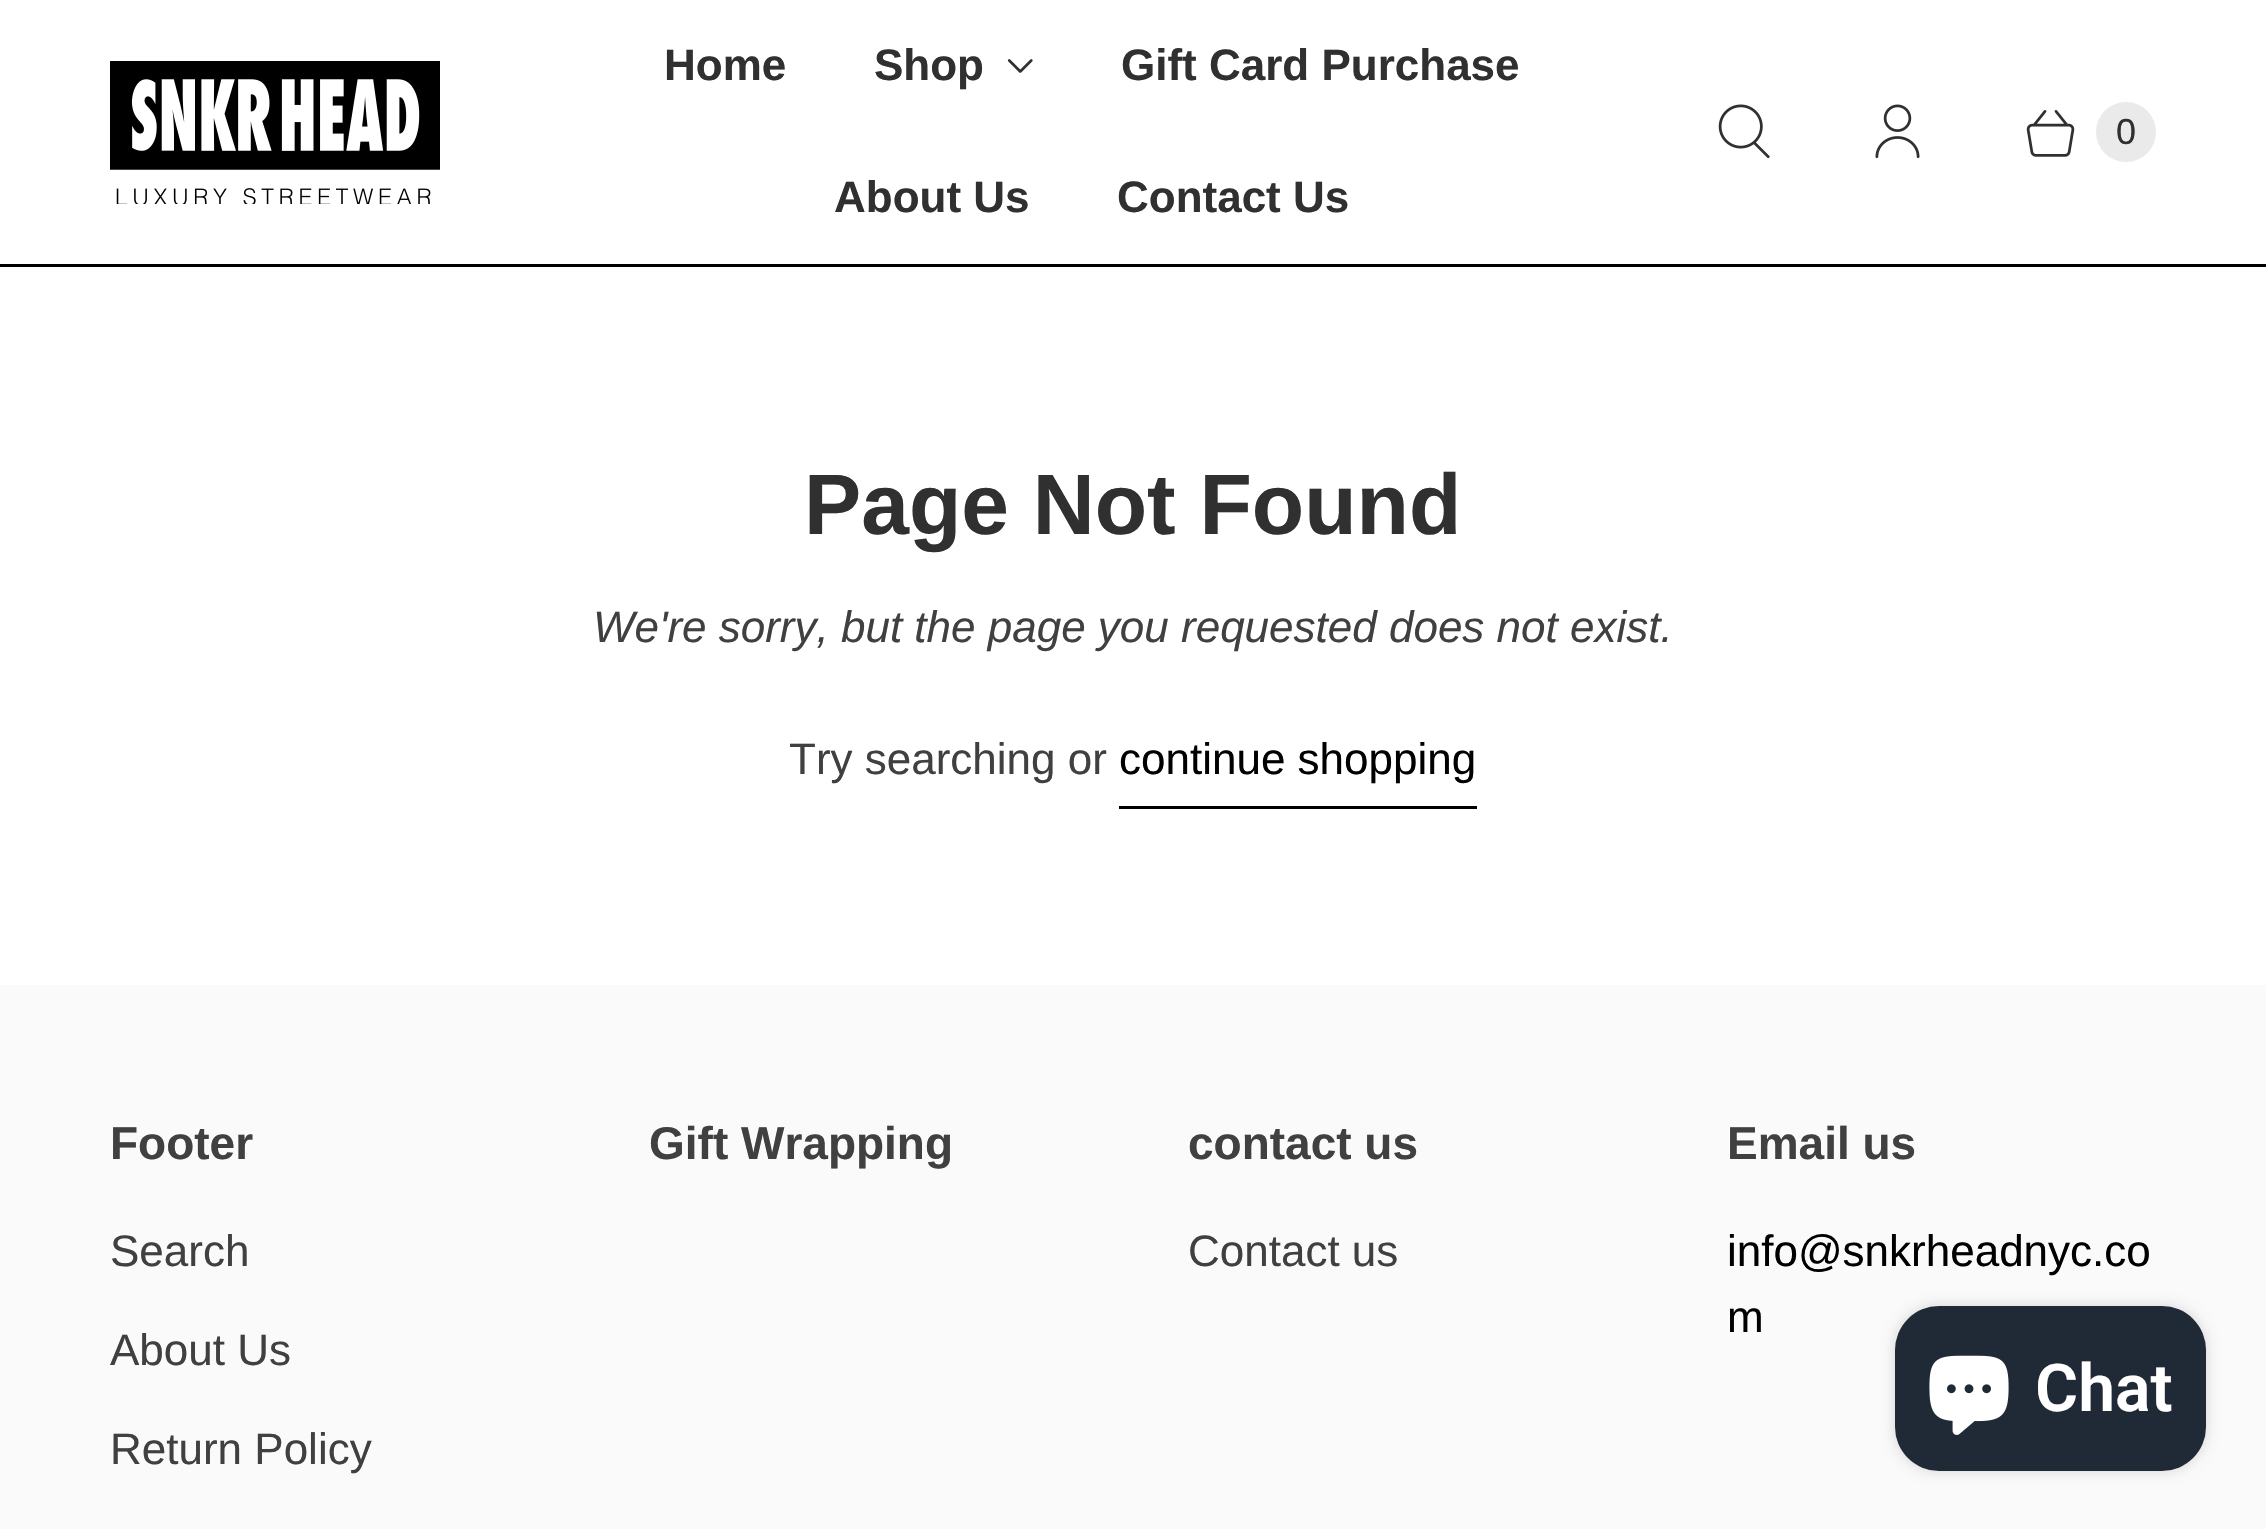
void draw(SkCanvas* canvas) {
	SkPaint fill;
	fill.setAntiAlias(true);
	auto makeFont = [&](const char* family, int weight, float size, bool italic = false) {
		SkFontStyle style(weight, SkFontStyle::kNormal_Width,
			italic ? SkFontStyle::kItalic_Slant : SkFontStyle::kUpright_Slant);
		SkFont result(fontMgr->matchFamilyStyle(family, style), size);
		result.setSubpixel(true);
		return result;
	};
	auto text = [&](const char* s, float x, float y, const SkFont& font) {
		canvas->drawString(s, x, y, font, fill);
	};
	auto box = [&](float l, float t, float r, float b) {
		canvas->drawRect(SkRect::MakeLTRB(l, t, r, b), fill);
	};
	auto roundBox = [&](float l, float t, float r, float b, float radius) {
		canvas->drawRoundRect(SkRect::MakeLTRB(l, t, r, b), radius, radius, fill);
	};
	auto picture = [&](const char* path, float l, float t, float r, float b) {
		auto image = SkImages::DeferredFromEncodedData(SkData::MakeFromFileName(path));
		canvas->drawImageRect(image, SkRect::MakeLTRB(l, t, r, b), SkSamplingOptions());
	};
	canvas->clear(0xFFFFFFFF);
	fill.setColor(0xFF000000);
	box(0, 264, 2266, 267);
	picture("image0.png", 110, 61, 440, 204);
	picture("image1.png", 1007, 59, 1033, 73);
	picture("image2.png", 1718, 104, 1770, 159);
	picture("image3.png", 1875, 104, 1920, 159);
	picture("image4.png", 2026, 110, 2075, 157);
	fill.setColor(0xFFEAEAEA);
	canvas->drawCircle(2126, 132, 30, fill);
	fill.setColor(0xFF000000);
	box(1119, 806, 1477, 809);
	fill.setColor(0xFFFAFAFA);
	box(0, 985, 2266, 1529);
	fill.setColor(0x26000000);
	fill.setMaskFilter(SkMaskFilter::MakeBlur(kNormal_SkBlurStyle, 7));
	canvas->drawRoundRect(SkRect::MakeLTRB(1895, 1306, 2206, 1471), 44, 44, fill);
	fill.setMaskFilter(nullptr);
	fill.setColor(0xFF202A36);
	roundBox(1895, 1306, 2206, 1471, 44);
	picture("image5.png", 1929, 1355, 2009, 1435);
	auto font1 = makeFont("Liberation Sans", 700, 44);
	fill.setColor(0xFF303030);
	text("Home", 664, 80, font1);
	text("Shop", 874, 80, font1);
	text("Gift Card Purchase", 1121, 80, font1);
	text("About Us", 834, 212, font1);
	text("Contact Us", 1117, 212, font1);
	auto font2 = makeFont("Liberation Sans", 400, 36);
	text("0", 2116, 144, font2);
	auto font3 = makeFont("Liberation Sans", 700, 85.75f);
	text("Page Not Found", 804, 534, font3);
	auto font4 = makeFont("Liberation Sans", 400, 44, true);
	fill.setColor(0xFF404040);
	text("We're sorry, but the page you requested does not exist.", 593, 642, font4);
	auto font5 = makeFont("Liberation Sans", 400, 44);
	text("Try searching or", 789, 774, font5);
	fill.setColor(0xFF000000);
	text("continue shopping", 1119, 774, font5);
	auto font6 = makeFont("Liberation Sans", 700, 46);
	fill.setColor(0xFF404040);
	text("Footer", 110, 1159, font6);
	text("Search", 110, 1266, font5);
	text("About Us", 110, 1365, font5);
	text("Return Policy", 110, 1464, font5);
	text("Gift Wrapping", 649, 1159, font6);
	text("contact us", 1188, 1159, font6);
	text("Contact us", 1188, 1266, font5);
	text("Email us", 1727, 1159, font6);
	fill.setColor(0xFF000000);
	text("info@snkrheadnyc.co", 1727, 1266, font5);
	text("m", 1727, 1332, font5);
	auto font7 = makeFont("Roboto", 600, 66);
	fill.setColor(0xFFFFFFFF);
	text("Chat", 2035, 1411, font7);
}
